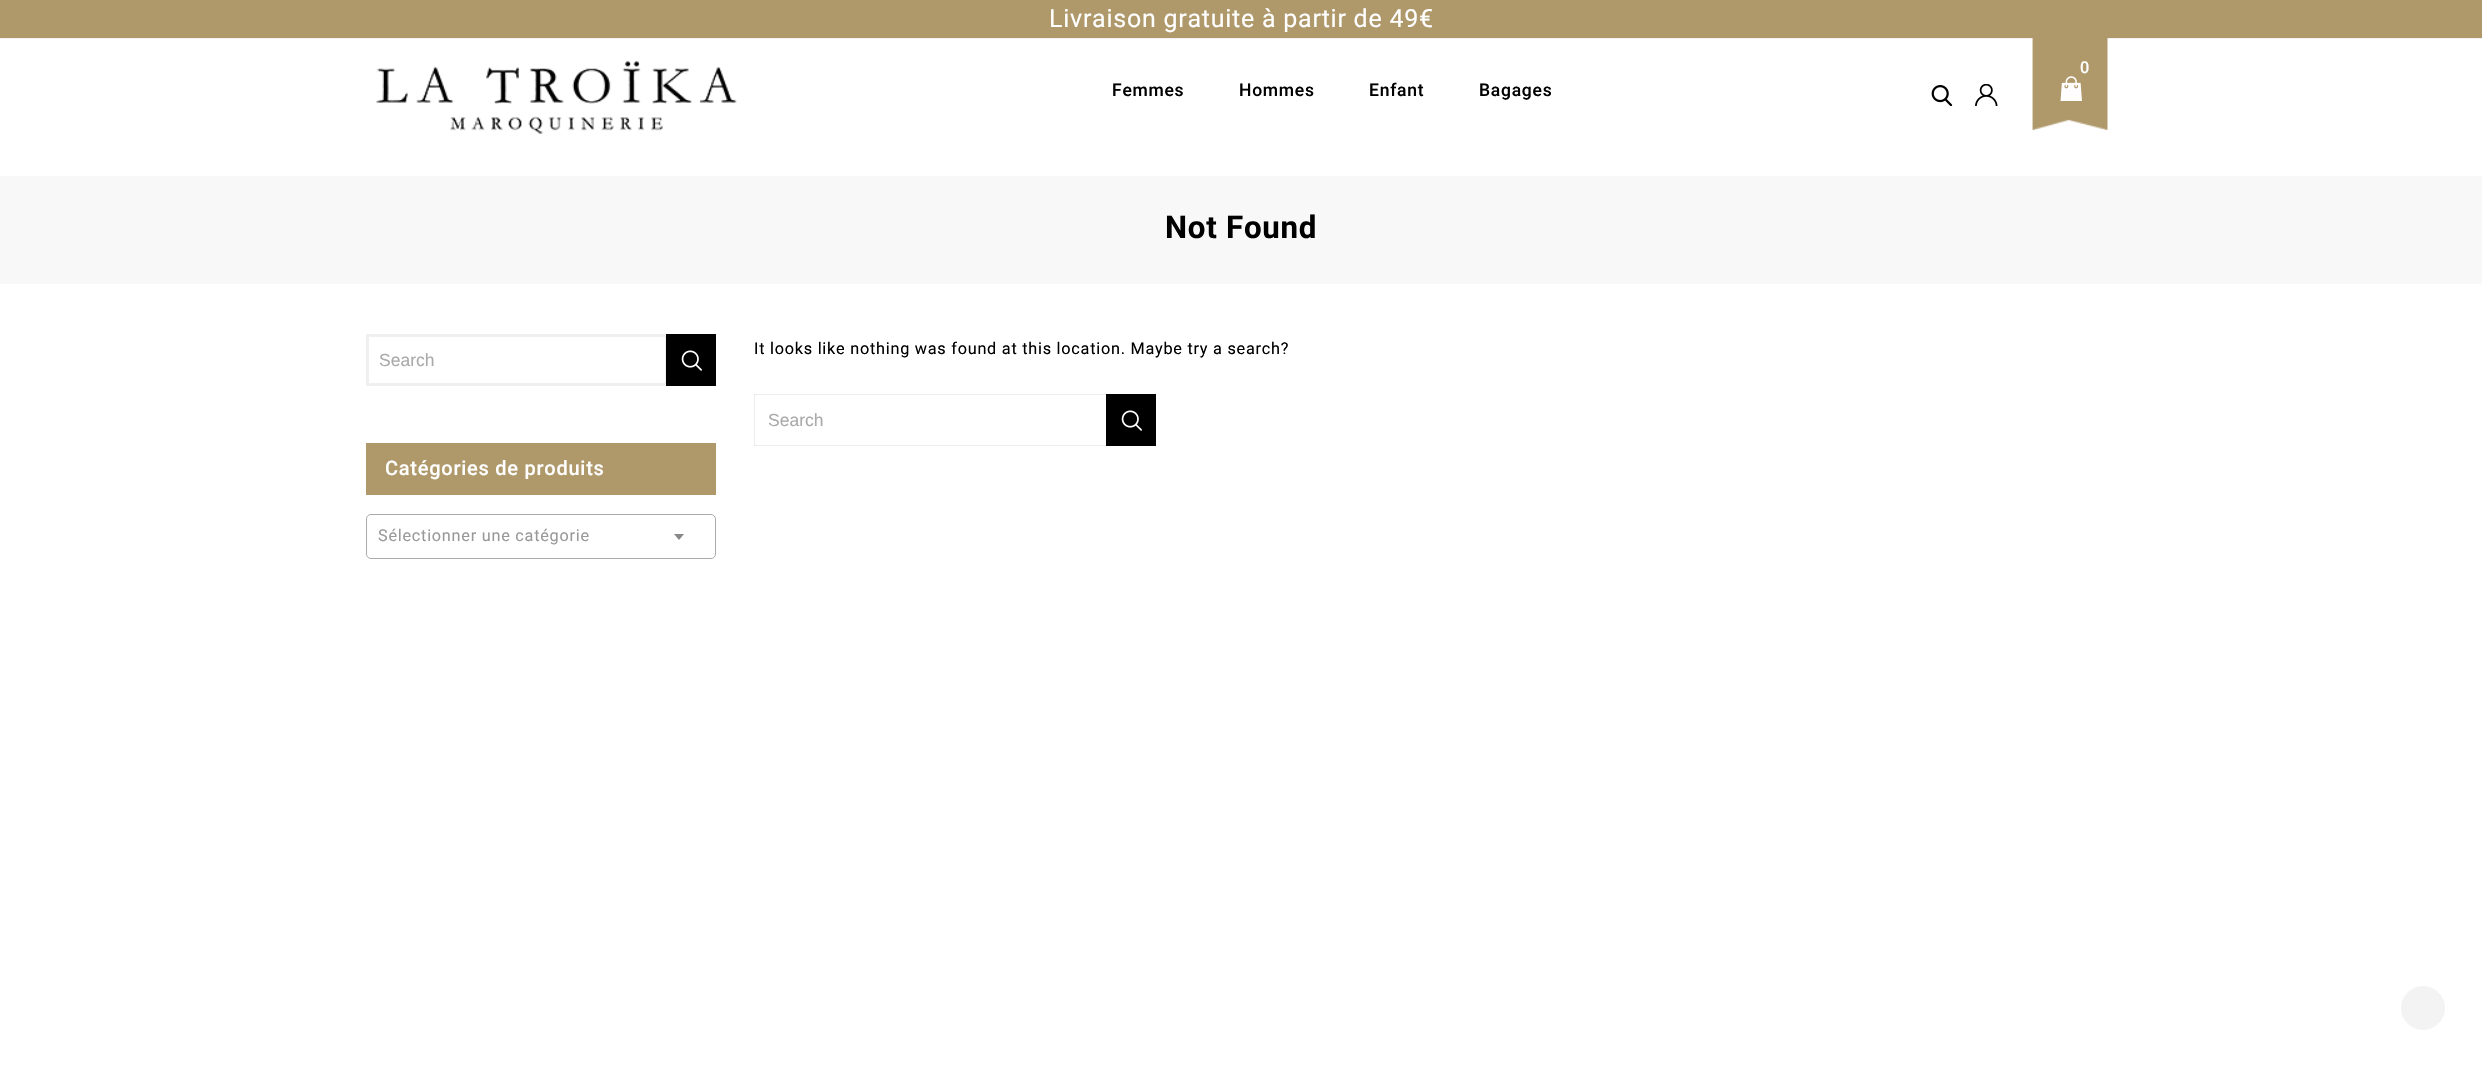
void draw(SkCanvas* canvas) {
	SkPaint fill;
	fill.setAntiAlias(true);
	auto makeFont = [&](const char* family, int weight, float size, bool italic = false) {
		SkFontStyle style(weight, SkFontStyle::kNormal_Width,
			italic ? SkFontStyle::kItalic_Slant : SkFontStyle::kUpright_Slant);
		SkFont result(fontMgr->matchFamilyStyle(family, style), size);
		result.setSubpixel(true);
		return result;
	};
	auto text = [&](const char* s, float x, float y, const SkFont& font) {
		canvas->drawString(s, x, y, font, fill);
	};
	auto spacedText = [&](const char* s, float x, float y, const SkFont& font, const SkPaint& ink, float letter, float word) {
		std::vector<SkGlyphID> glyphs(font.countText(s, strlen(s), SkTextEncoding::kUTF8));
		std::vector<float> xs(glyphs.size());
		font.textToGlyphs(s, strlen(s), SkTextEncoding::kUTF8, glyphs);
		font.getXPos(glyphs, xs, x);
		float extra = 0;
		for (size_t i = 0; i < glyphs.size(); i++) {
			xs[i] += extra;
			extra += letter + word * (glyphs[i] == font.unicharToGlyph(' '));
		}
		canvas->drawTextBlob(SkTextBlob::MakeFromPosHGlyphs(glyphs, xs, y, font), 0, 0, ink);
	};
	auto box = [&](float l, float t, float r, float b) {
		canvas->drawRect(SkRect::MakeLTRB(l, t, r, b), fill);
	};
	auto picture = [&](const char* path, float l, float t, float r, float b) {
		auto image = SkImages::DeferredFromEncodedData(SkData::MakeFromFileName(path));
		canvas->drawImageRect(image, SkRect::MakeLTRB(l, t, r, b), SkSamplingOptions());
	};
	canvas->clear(0xFFFFFFFF);
	fill.setColor(0xFFAF996B);
	box(0, 0, 2482, 38);
	fill.setColor(0xFFF2F2F2);
	box(0, 38, 2482, 39);
	picture("image0.png", 376, 61, 737, 134);
	picture("image1.png", 2032, 38, 2108, 130);
	picture("image2.png", 2060, 76, 2082, 101);
	picture("image3.png", 1931, 85, 1953, 106);
	picture("image4.png", 1975, 84, 1998, 106);
	fill.setColor(0xFFF8F8F8);
	box(0, 176, 2482, 284);
	fill.setStyle(SkPaint::kStroke_Style);
	fill.setStrokeWidth(3);
	fill.setColor(0xFFF0F0F2);
	canvas->drawRect(SkRect::MakeLTRB(367.5f, 335.5f, 666.5f, 384.5f), fill);
	fill.setStyle(SkPaint::kFill_Style);
	fill.setColor(0xFF000000);
	box(666, 334, 716, 386);
	picture("image5.png", 681, 350, 702, 371);
	fill.setColor(0xFFAF996B);
	box(366, 443, 716, 495);
	fill.setStyle(SkPaint::kStroke_Style);
	fill.setStrokeWidth(1);
	fill.setColor(0xFFAAAAAA);
	canvas->drawRoundRect(SkRect::MakeLTRB(366.5f, 514.5f, 715.5f, 558.5f), 4.5f, 4.5f, fill);
	fill.setStyle(SkPaint::kFill_Style);
	fill.setColor(0xFF888888);
	canvas->drawPath(SkPathBuilder().moveTo(674, 534).lineTo(684, 534).lineTo(679, 540).close().detach(), fill);
	fill.setStyle(SkPaint::kStroke_Style);
	fill.setColor(0xFFEDEDED);
	canvas->drawRect(SkRect::MakeLTRB(754.5f, 394.5f, 1107.5f, 445.5f), fill);
	fill.setStyle(SkPaint::kFill_Style);
	fill.setColor(0xFF000000);
	box(1106, 394, 1156, 446);
	picture("image5.png", 1121, 410, 1142, 431);
	fill.setColor(0xFFF3F3F3);
	canvas->drawCircle(2423, 1008, 21.5f, fill);
	fill.setStyle(SkPaint::kStroke_Style);
	canvas->drawCircle(2423, 1008, 21.5f, fill);
	auto font1 = makeFont("Roboto", 400, 25);
	fill.setStyle(SkPaint::kFill_Style);
	fill.setColor(0xFFFFFFFF);
	spacedText("Livraison gratuite à partir de 49€", 1049, 27, font1, fill, 0.75f, 0);
	auto font2 = makeFont("Roboto", 500, 16.25f);
	spacedText("0", 2080, 73, font2, fill, 0.75f, 0);
	auto font3 = makeFont("Roboto", 500, 17.5f);
	fill.setColor(0xFF000000);
	spacedText("Femmes", 1112, 96, font3, fill, 0.75f, 0);
	spacedText("Hommes", 1239, 96, font3, fill, 0.75f, 0);
	spacedText("Enfant", 1369, 96, font3, fill, 0.75f, 0);
	spacedText("Bagages", 1479, 96, font3, fill, 0.75f, 0);
	auto font4 = makeFont("Roboto", 700, 31.25f);
	spacedText("Not Found", 1165, 238, font4, fill, 0.75f, 0);
	auto font5 = makeFont("Liberation Sans", 400, 17.5f);
	fill.setColor(0xFFAAAAAA);
	text("Search", 379, 366, font5);
	auto font6 = makeFont("Roboto", 500, 20);
	fill.setColor(0xFFFFFFFF);
	spacedText("Catégories de produits", 385, 475, font6, fill, 0.75f, 0);
	auto font7 = makeFont("Roboto", 400, 16.25f);
	fill.setColor(0xFF999999);
	spacedText("Sélectionner une catégorie", 378, 541, font7, fill, 0.75f, 0);
	fill.setColor(0xFF000000);
	spacedText("It looks like nothing was found at this location. Maybe try a search?", 754, 354, font7, fill, 0.75f, 0);
	fill.setColor(0xFFAAAAAA);
	text("Search", 768, 426, font5);
}
